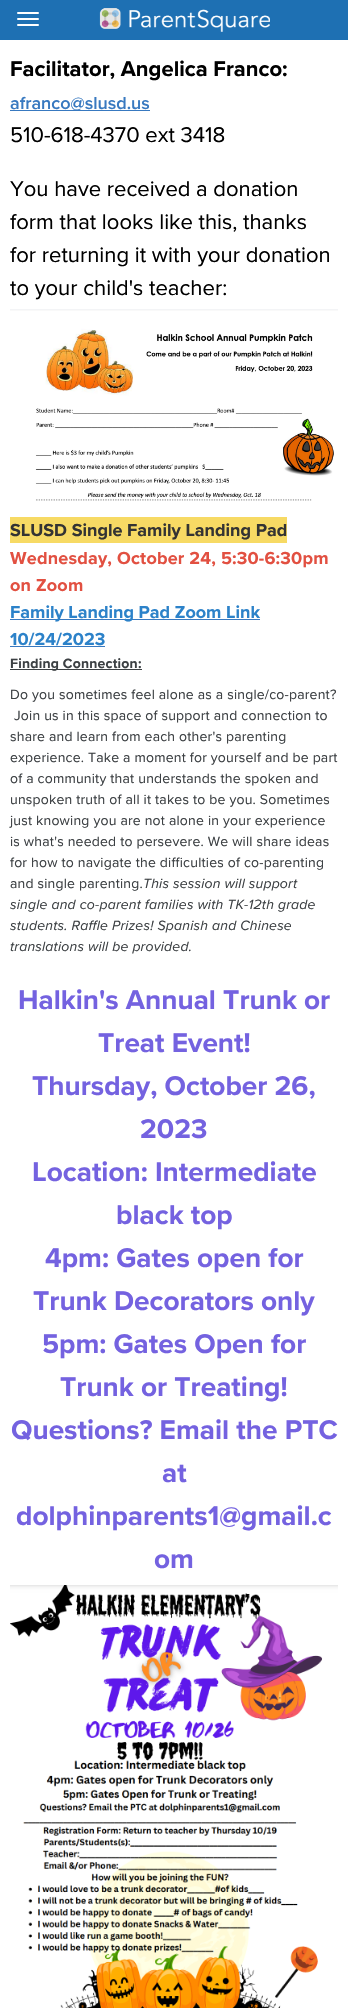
void draw(SkCanvas* canvas) {
	SkPaint fill;
	fill.setAntiAlias(true);
	auto makeFont = [&](const char* family, int weight, float size, bool italic = false) {
		SkFontStyle style(weight, SkFontStyle::kNormal_Width,
			italic ? SkFontStyle::kItalic_Slant : SkFontStyle::kUpright_Slant);
		SkFont result(fontMgr->matchFamilyStyle(family, style), size);
		result.setSubpixel(true);
		return result;
	};
	auto text = [&](const char* s, float x, float y, const SkFont& font) {
		canvas->drawString(s, x, y, font, fill);
	};
	auto spacedText = [&](const char* s, float x, float y, const SkFont& font, const SkPaint& ink, float letter, float word) {
		std::vector<SkGlyphID> glyphs(font.countText(s, strlen(s), SkTextEncoding::kUTF8));
		std::vector<float> xs(glyphs.size());
		font.textToGlyphs(s, strlen(s), SkTextEncoding::kUTF8, glyphs);
		font.getXPos(glyphs, xs, x);
		float extra = 0;
		for (size_t i = 0; i < glyphs.size(); i++) {
			xs[i] += extra;
			extra += letter + word * (glyphs[i] == font.unicharToGlyph(' '));
		}
		canvas->drawTextBlob(SkTextBlob::MakeFromPosHGlyphs(glyphs, xs, y, font), 0, 0, ink);
	};
	auto box = [&](float l, float t, float r, float b) {
		canvas->drawRect(SkRect::MakeLTRB(l, t, r, b), fill);
	};
	auto roundBox = [&](float l, float t, float r, float b, float radius) {
		canvas->drawRoundRect(SkRect::MakeLTRB(l, t, r, b), radius, radius, fill);
	};
	auto picture = [&](const char* path, float l, float t, float r, float b) {
		auto image = SkImages::DeferredFromEncodedData(SkData::MakeFromFileName(path));
		canvas->drawImageRect(image, SkRect::MakeLTRB(l, t, r, b), SkSamplingOptions());
	};
	canvas->clear(0xFFFFFFFF);
	fill.setColor(0xFF1E70B3);
	box(0, 0, 348, 40);
	fill.setColor(0xFFFFFFFF);
	roundBox(17, 12, 39, 14, 1);
	roundBox(17, 18, 39, 20, 1);
	roundBox(17, 24, 39, 26, 1);
	picture("image0.png", 99, 8, 270, 32);
	fill.setColor(0xFF3879C0);
	box(10, 110, 150, 111);
	picture("image1.png", 10, 309, 338, 501);
	fill.setColor(0xFFF7DA64);
	box(10, 517, 287, 543);
	fill.setColor(0xFF3879C0);
	box(10, 619, 260, 620);
	box(10, 646, 105, 647);
	fill.setColor(0xFF3C4043);
	box(10, 669, 142, 670);
	picture("image2.png", 10, 1585, 338, 2008);
	auto font1 = makeFont("Proxima Nova", 700, 22);
	fill.setColor(0xFF000000);
	text("Facilitator, Angelica Franco:", 10, 76, font1);
	auto font2 = makeFont("Proxima Nova", 600, 18);
	fill.setColor(0xFF3879C0);
	text("afranco@slusd.us", 10, 109, font2);
	auto font3 = makeFont("Proxima Nova", 400, 22);
	fill.setColor(0xFF000000);
	text("510-618-4370 ext 3418", 10, 142, font3);
	text("You have received a donation", 10, 196, font3);
	text("form that looks like this, thanks", 10, 229, font3);
	text("for returning it with your donation", 10, 262, font3);
	text("to your child's teacher:", 10, 295, font3);
	auto font4 = makeFont("Proxima Nova", 700, 18);
	fill.setColor(0xFF333333);
	text("SLUSD Single Family Landing Pad", 10, 536, font4);
	fill.setColor(0xFFE25041);
	spacedText("Wednesday, October 24, 5:30-6:30pm", 10, 564, font4, fill, 0.2f, 0);
	spacedText("on Zoom", 10, 591, font4, fill, 0.2f, 0);
	fill.setColor(0xFF2C82C9);
	text("Family Landing Pad Zoom Link", 10, 618, font4);
	text("10/24/2023", 10, 645, font4);
	auto font5 = makeFont("Proxima Nova", 700, 14);
	fill.setColor(0xFF3C4043);
	spacedText("Finding Connection:", 10, 668, font5, fill, 0.2f, 0);
	auto font6 = makeFont("Proxima Nova", 400, 14);
	spacedText("Do you sometimes feel alone as a single/co-parent?", 10, 699, font6, fill, 0.2f, 0);
	spacedText("Join us in this space of support and connection to", 14, 720, font6, fill, 0.2f, 0);
	spacedText("share and learn from each other's parenting", 10, 741, font6, fill, 0.2f, 0);
	spacedText("experience. Take a moment for yourself and be part", 10, 762, font6, fill, 0.2f, 0);
	spacedText("of a community that understands the spoken and", 10, 783, font6, fill, 0.2f, 0);
	spacedText("unspoken truth of all it takes to be you. Sometimes", 10, 804, font6, fill, 0.2f, 0);
	spacedText("just knowing you are not alone in your experience", 10, 825, font6, fill, 0.2f, 0);
	spacedText("is what's needed to persevere. We will share ideas", 10, 846, font6, fill, 0.2f, 0);
	spacedText("for how to navigate the difficulties of co-parenting", 10, 867, font6, fill, 0.2f, 0);
	spacedText("and single parenting.", 10, 888, font6, fill, 0.2f, 0);
	auto font7 = makeFont("Proxima Nova", 400, 14, true);
	spacedText("This session will support", 143, 888, font7, fill, 0.2f, 0);
	spacedText("single and co-parent families with TK-12th grade", 10, 909, font7, fill, 0.2f, 0);
	spacedText("students. Raffle Prizes! Spanish and Chinese", 10, 930, font7, fill, 0.2f, 0);
	spacedText("translations will be provided.", 10, 951, font7, fill, 0.2f, 0);
	auto font8 = makeFont("Proxima Nova", 700, 28);
	fill.setColor(0xFF7462E0);
	text("Halkin's Annual Trunk or", 18, 1009, font8);
	text("Treat Event!", 98, 1052, font8);
	text("Thursday, October 26,", 32, 1095, font8);
	text("2023", 140, 1138, font8);
	text("Location: Intermediate", 32, 1181, font8);
	text("black top", 116, 1224, font8);
	text("4pm: Gates open for", 45, 1267, font8);
	text("Trunk Decorators only", 33, 1310, font8);
	text("5pm: Gates Open for", 42, 1353, font8);
	text("Trunk or Treating!", 60, 1396, font8);
	text("Questions? Email the PTC", 11, 1439, font8);
	text("at", 162, 1482, font8);
	text("dolphinparents1@gmail.c", 16, 1525, font8);
	text("om", 154, 1568, font8);
}
